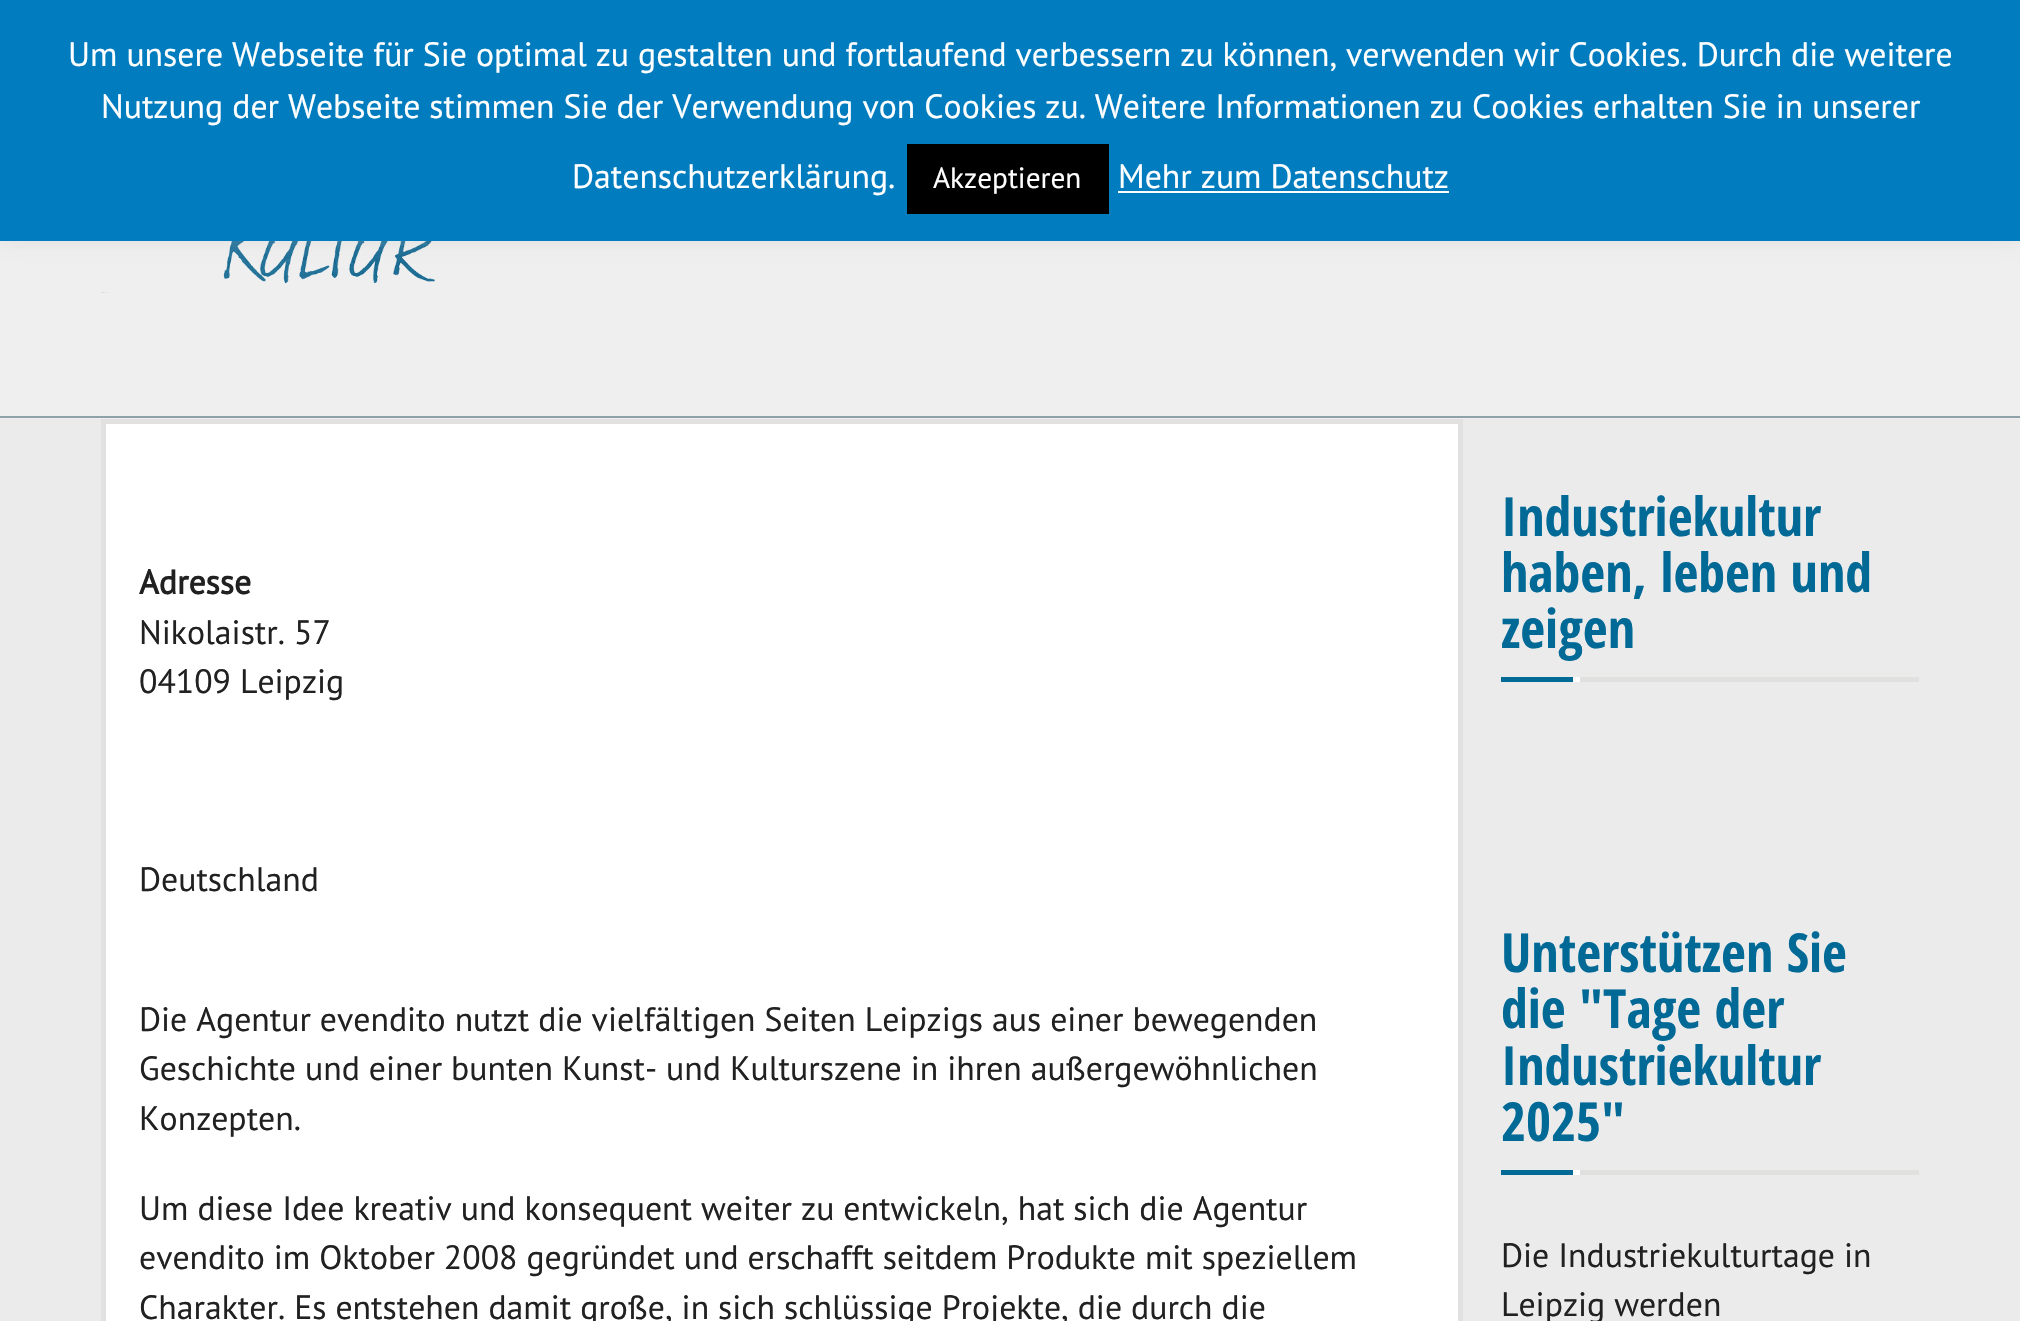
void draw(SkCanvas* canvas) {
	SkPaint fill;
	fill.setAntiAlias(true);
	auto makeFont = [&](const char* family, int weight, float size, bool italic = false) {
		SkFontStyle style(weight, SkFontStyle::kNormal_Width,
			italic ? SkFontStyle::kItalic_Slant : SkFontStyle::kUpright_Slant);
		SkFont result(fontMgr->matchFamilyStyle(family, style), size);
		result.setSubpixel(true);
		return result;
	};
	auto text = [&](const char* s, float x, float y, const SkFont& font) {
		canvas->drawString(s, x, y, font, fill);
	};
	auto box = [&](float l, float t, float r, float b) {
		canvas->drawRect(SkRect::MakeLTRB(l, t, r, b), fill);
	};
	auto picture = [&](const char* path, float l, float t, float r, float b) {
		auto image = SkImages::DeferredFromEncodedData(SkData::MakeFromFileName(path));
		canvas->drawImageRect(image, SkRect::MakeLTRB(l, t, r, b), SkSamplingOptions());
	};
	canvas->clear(0xFFEBEBEB);
	fill.setColor(0xFFEFEFEF);
	box(0, 241, 2020, 419);
	picture("image0.png", 101, 241, 435, 293);
	fill.setColor(0x4DACABAB);
	fill.setMaskFilter(SkMaskFilter::MakeBlur(kNormal_SkBlurStyle, 11));
	canvas->drawRect(SkRect::MakeLTRB(0, -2, 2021, 239), fill);
	fill.setMaskFilter(nullptr);
	fill.setColor(0xFF007CBF);
	box(0, 0, 2020, 241);
	fill.setColor(0xFF000000);
	box(907, 144, 1109, 214);
	fill.setColor(0xFFFFFFFF);
	box(1118, 191, 1449, 193);
	fill.setColor(0xFF8FA2A9);
	box(0, 416, 2020, 418);
	fill.setColor(0xFFFFFFFF);
	canvas->drawRect(SkRect::MakeLTRB(103.5f, 421.5f, 1460.5f, 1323.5f), fill);
	fill.setStyle(SkPaint::kStroke_Style);
	fill.setStrokeWidth(5);
	fill.setColor(0xFFE1E1E1);
	canvas->drawRect(SkRect::MakeLTRB(103.5f, 421.5f, 1460.5f, 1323.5f), fill);
	fill.setStyle(SkPaint::kFill_Style);
	fill.setColor(0xFFE0E0DE);
	box(1580, 677, 1919, 682);
	fill.setColor(0xFF006996);
	box(1501, 677, 1580, 682);
	fill.setColor(0xFFFFFFFF);
	box(1573, 677, 1580, 682);
	fill.setColor(0xFFE0E0DE);
	box(1580, 1170, 1919, 1175);
	fill.setColor(0xFF006996);
	box(1501, 1170, 1580, 1175);
	fill.setColor(0xFFFFFFFF);
	box(1573, 1170, 1580, 1175);
	auto font1 = makeFont("PT Sans", 400, 33.75f);
	text("Um unsere Webseite für Sie optimal zu gestalten und fortlaufend verbessern zu können, verwenden wir Cookies. Durch die weitere", 68, 66, font1);
	text("Nutzung der Webseite stimmen Sie der Verwendung von Cookies zu. Weitere Informationen zu Cookies erhalten Sie in unserer", 101, 118, font1);
	text("Datenschutzerklärung.", 572, 188, font1);
	auto font2 = makeFont("PT Sans", 400, 29.25f);
	text("Akzeptieren", 933, 188, font2);
	text("Mehr zum Datenschutz", 1118, 188, font1);
	auto font3 = makeFont("PT Sans", 700, 33.75f);
	fill.setColor(0xFF212121);
	text("Adresse", 139, 594, font3);
	text("Nikolaistr. 57", 139, 644, font1);
	text("04109 Leipzig", 139, 693, font1);
	text("Deutschland", 139, 891, font1);
	text("Die Agentur evendito nutzt die vielfältigen Seiten Leipzigs aus einer bewegenden", 139, 1031, font1);
	text("Geschichte und einer bunten Kunst- und Kulturszene in ihren außergewöhnlichen", 139, 1080, font1);
	text("Konzepten.", 139, 1130, font1);
	text("Um diese Idee kreativ und konsequent weiter zu entwickeln, hat sich die Agentur", 139, 1220, font1);
	text("evendito im Oktober 2008 gegründet und erschafft seitdem Produkte mit speziellem", 139, 1269, font1);
	text("Charakter. Es entstehen damit große, in sich schlüssige Projekte, die durch die", 139, 1319, font1);
	auto font4 = makeFont("Open Sans Condensed", 700, 54);
	fill.setColor(0xFF006996);
	text("Industriekultur", 1501, 536, font4);
	text("haben, leben und", 1501, 592, font4);
	text("zeigen", 1501, 648, font4);
	text("Unterstützen Sie", 1501, 972, font4);
	text("die \"Tage der", 1501, 1028, font4);
	text("Industriekultur", 1501, 1085, font4);
	text("2025\"", 1501, 1141, font4);
	fill.setColor(0xFF212121);
	text("Die Industriekulturtage in", 1501, 1267, font1);
	text("Leipzig werden", 1501, 1316, font1);
}
